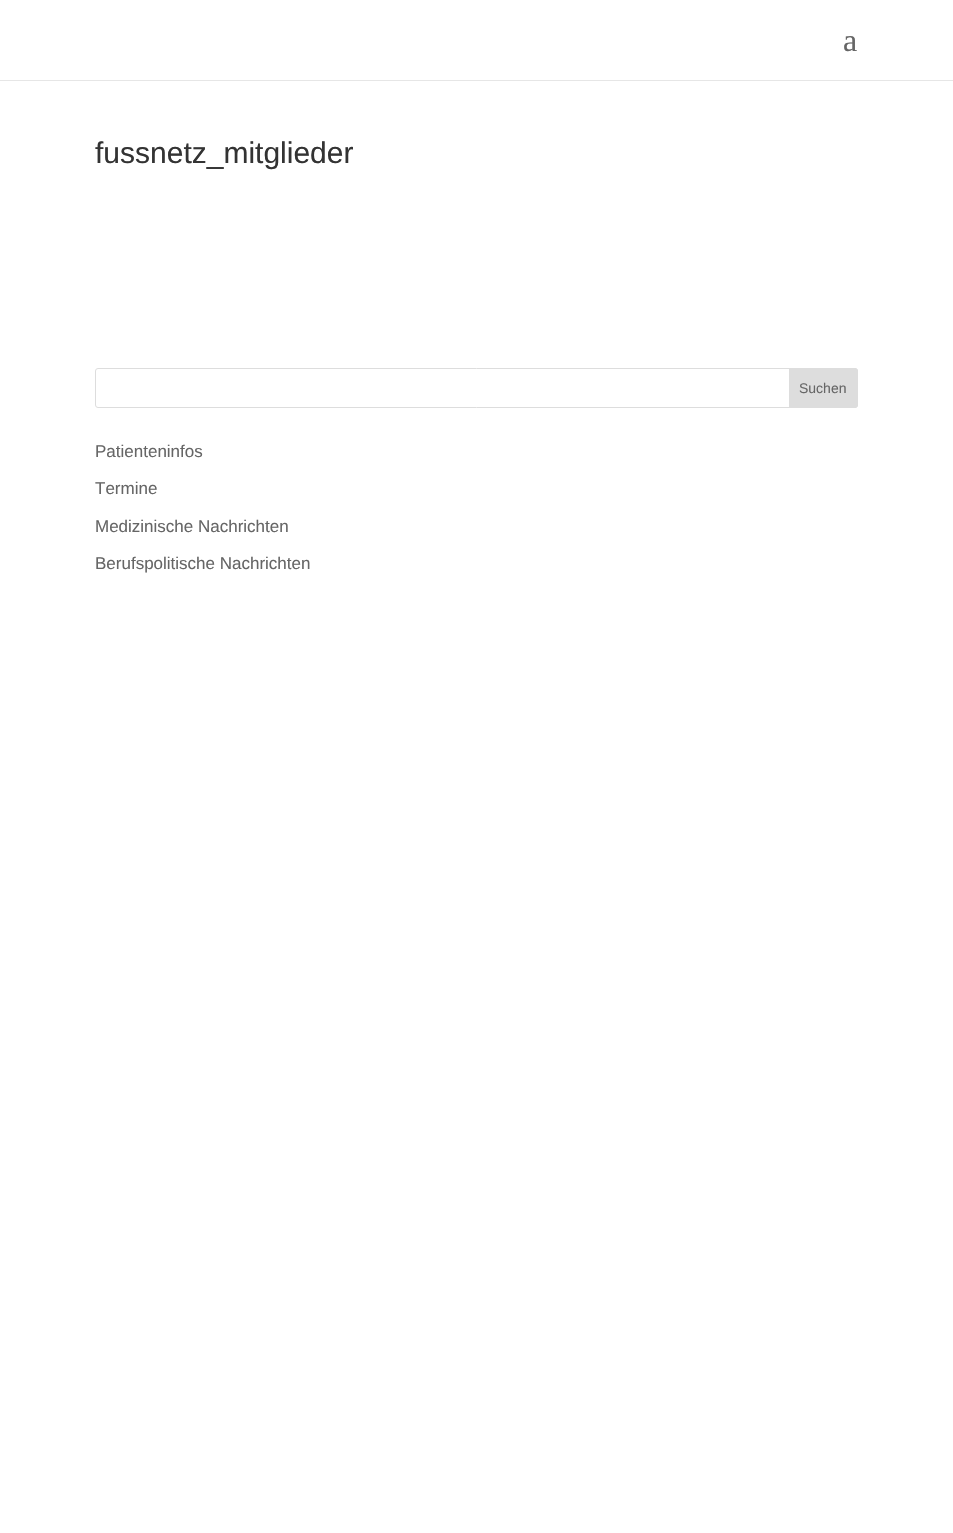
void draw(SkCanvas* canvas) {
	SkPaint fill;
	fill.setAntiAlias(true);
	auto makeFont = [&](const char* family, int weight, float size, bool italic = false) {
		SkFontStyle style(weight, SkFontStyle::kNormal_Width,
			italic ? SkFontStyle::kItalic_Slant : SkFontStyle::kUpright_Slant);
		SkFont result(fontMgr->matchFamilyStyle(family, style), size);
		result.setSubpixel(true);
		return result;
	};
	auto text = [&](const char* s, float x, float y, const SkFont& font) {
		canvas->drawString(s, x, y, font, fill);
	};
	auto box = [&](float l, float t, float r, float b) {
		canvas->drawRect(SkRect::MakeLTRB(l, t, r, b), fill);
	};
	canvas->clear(0xFFFFFFFF);
	fill.setColor(0xFFE6E6E6);
	box(0, 80, 953, 81);
	fill.setStyle(SkPaint::kStroke_Style);
	fill.setStrokeWidth(1);
	fill.setColor(0xFFDDDDDD);
	canvas->drawRoundRect(SkRect::MakeLTRB(95.5f, 368.5f, 857.5f, 407.5f), 2.5f, 2.5f, fill);
	fill.setStyle(SkPaint::kFill_Style);
	canvas->drawPath(SkPathBuilder().moveTo(789.5f, 368.5f).lineTo(855, 368.5f).cubicTo(856.5f, 368.5f, 857.5f, 369.5f, 857.5f, 371).lineTo(857.5f, 405).cubicTo(857.5f, 406.5f, 856.5f, 407.5f, 855, 407.5f).lineTo(789.5f, 407.5f).close().detach(), fill);
	fill.setStyle(SkPaint::kStroke_Style);
	canvas->drawPath(SkPathBuilder().moveTo(789.5f, 368.5f).lineTo(855, 368.5f).cubicTo(856.5f, 368.5f, 857.5f, 369.5f, 857.5f, 371).lineTo(857.5f, 405).cubicTo(857.5f, 406.5f, 856.5f, 407.5f, 855, 407.5f).lineTo(789.5f, 407.5f).close().detach(), fill);
	auto font1 = makeFont("Liberation Serif", 400, 32);
	fill.setStyle(SkPaint::kFill_Style);
	fill.setColor(0xFF666666);
	text("a", 843, 51, font1);
	auto font2 = makeFont("Liberation Sans", 400, 30);
	fill.setColor(0xFF333333);
	text("fussnetz_mitglieder", 95, 163, font2);
	auto font3 = makeFont("Liberation Sans", 400, 14);
	fill.setColor(0xFF666666);
	text("Suchen", 799, 393, font3);
	auto font4 = makeFont("Liberation Sans", 400, 17);
	text("Patienteninfos", 95, 457, font4);
	text("Termine", 95, 494, font4);
	text("Medizinische Nachrichten", 95, 532, font4);
	text("Berufspolitische Nachrichten", 95, 569, font4);
}
